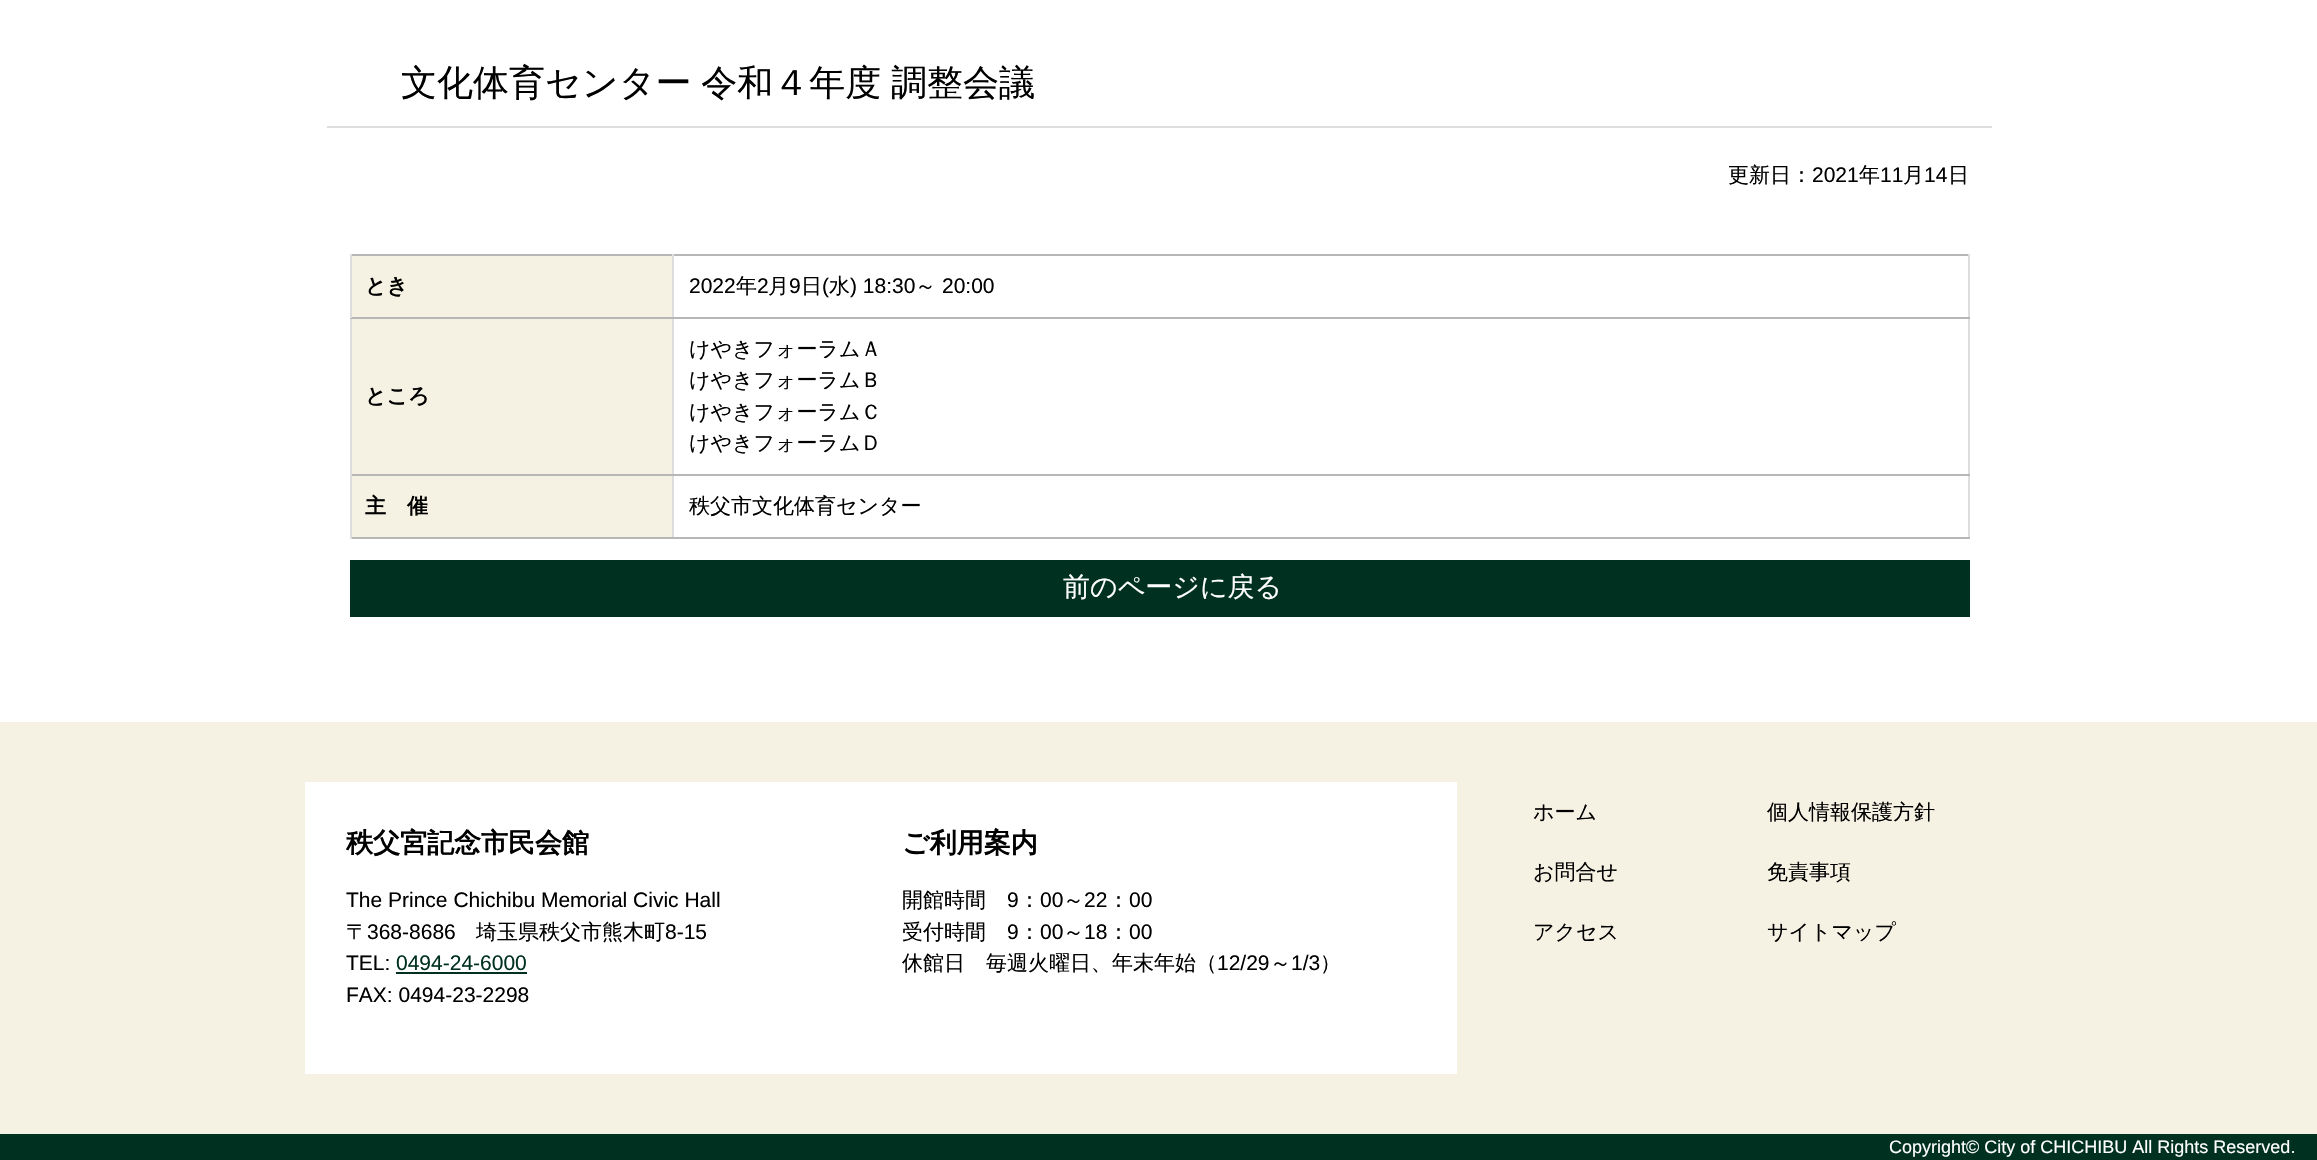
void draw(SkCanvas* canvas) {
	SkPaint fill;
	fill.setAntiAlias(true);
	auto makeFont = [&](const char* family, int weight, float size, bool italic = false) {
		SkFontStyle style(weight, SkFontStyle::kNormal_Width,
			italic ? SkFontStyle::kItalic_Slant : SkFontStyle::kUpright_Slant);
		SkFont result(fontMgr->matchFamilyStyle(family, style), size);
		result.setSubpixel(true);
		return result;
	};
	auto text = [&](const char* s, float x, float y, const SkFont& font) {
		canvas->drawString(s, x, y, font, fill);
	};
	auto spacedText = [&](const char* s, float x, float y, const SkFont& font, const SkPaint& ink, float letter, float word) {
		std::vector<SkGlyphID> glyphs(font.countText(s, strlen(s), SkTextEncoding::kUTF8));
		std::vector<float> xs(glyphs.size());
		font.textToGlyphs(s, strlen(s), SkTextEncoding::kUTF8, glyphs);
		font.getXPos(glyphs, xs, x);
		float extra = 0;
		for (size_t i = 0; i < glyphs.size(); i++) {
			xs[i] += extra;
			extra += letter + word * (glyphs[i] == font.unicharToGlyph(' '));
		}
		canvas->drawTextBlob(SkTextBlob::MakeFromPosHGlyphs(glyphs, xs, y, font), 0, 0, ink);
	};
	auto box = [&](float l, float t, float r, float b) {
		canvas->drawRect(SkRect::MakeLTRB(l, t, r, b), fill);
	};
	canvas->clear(0xFFFFFFFF);
	fill.setColor(0xFFDDDDDD);
	box(327, 126, 1992, 128);
	fill.setColor(0xFFF6F2E3);
	box(352, 256, 672, 317);
	fill.setColor(0xFFB7B7B7);
	box(350, 254, 1970, 256);
	fill.setColor(0xFFDDDDDD);
	box(1968, 317, 1970, 539);
	box(1968, 254, 1970, 318);
	fill.setColor(0xFFB7B7B7);
	box(672, 537, 1970, 539);
	fill.setColor(0xFFDDDDDD);
	box(672, 474, 674, 539);
	fill.setColor(0xFFB7B7B7);
	box(672, 474, 1970, 476);
	fill.setColor(0xFFDDDDDD);
	box(672, 317, 674, 476);
	fill.setColor(0xFFB7B7B7);
	box(672, 317, 1970, 319);
	fill.setColor(0xFFDDDDDD);
	box(672, 254, 674, 318);
	fill.setColor(0xFFB7B7B7);
	box(350, 537, 674, 539);
	fill.setColor(0xFFDDDDDD);
	box(350, 474, 352, 539);
	fill.setColor(0xFFB7B7B7);
	box(350, 474, 674, 476);
	fill.setColor(0xFFDDDDDD);
	box(350, 317, 352, 476);
	fill.setColor(0xFFB7B7B7);
	box(350, 317, 674, 319);
	fill.setColor(0xFFDDDDDD);
	box(350, 254, 352, 318);
	fill.setColor(0xFFF6F2E3);
	box(352, 319, 672, 474);
	box(352, 476, 672, 537);
	fill.setColor(0xFF003120);
	box(350, 560, 1970, 617);
	fill.setColor(0xFFF6F2E3);
	box(0, 722, 2317, 1134);
	fill.setColor(0xFFFFFFFF);
	box(305, 782, 1457, 1074);
	fill.setColor(0xFF003120);
	box(396, 972, 527, 974);
	box(0, 1134, 2317, 1160);
	auto font1 = makeFont("WenQuanYi Zen Hei", 500, 36);
	fill.setColor(0xFF000000);
	spacedText("文化体育センター 令和４年度 調整会議", 401, 95, font1, fill, 0, -1);
	auto font2 = makeFont("WenQuanYi Zen Hei", 500, 21);
	text("更新日：", 1728, 182, font2);
	auto font3 = makeFont("Liberation Sans", 400, 21);
	text("2021", 1812, 182, font3);
	text("年", 1859, 182, font2);
	text("11", 1880, 182, font3);
	text("月", 1903, 182, font2);
	text("14", 1924, 182, font3);
	text("日", 1948, 182, font2);
	auto font4 = makeFont("WenQuanYi Zen Hei", 700, 21);
	text("とき", 365, 293, font4);
	text("2022", 689, 293, font3);
	text("年", 736, 293, font2);
	text("2", 757, 293, font3);
	text("月", 768, 293, font2);
	text("9", 789, 293, font3);
	text("日", 801, 293, font2);
	text("(", 822, 293, font3);
	text("水", 829, 293, font2);
	text(") 18:30", 850, 293, font3);
	text("～", 915, 293, font2);
	text("20:00", 942, 293, font3);
	text("ところ", 365, 403, font4);
	text("けやきフォーラムＡ", 689, 356, font2);
	text("けやきフォーラムＢ", 689, 387, font2);
	text("けやきフォーラムＣ", 689, 419, font2);
	text("けやきフォーラムＤ", 689, 450, font2);
	text("主　催", 365, 513, font4);
	text("秩父市文化体育センター", 689, 513, font2);
	auto font5 = makeFont("WenQuanYi Zen Hei", 500, 27);
	fill.setColor(0xFFFFFFFF);
	text("前のページに戻る", 1063, 596, font5);
	auto font6 = makeFont("WenQuanYi Zen Hei", 700, 27);
	fill.setColor(0xFF000000);
	text("秩父宮記念市民会館", 346, 852, font6);
	text("The Prince Chichibu Memorial Civic Hall", 346, 907, font3);
	text("〒", 346, 939, font2);
	text("368-8686", 367, 939, font3);
	text("埼玉県秩父市熊木町", 476, 939, font2);
	text("8-15", 665, 939, font3);
	text("TEL:", 346, 970, font3);
	fill.setColor(0xFF003120);
	text("0494-24-6000", 396, 970, font3);
	fill.setColor(0xFF000000);
	text("FAX: 0494-23-2298", 346, 1002, font3);
	text("ご利用案内", 902, 852, font6);
	text("開館時間", 902, 907, font2);
	text("9", 1007, 907, font3);
	text("：", 1019, 907, font2);
	text("00", 1040, 907, font3);
	text("～", 1063, 907, font2);
	text("22", 1084, 907, font3);
	text("：", 1108, 907, font2);
	text("00", 1129, 907, font3);
	text("受付時間", 902, 939, font2);
	text("9", 1007, 939, font3);
	text("：", 1019, 939, font2);
	text("00", 1040, 939, font3);
	text("～", 1063, 939, font2);
	text("18", 1084, 939, font3);
	text("：", 1108, 939, font2);
	text("00", 1129, 939, font3);
	text("休館日　毎週火曜日、年末年始（", 902, 970, font2);
	text("12/29", 1217, 970, font3);
	text("～", 1270, 970, font2);
	text("1/3", 1291, 970, font3);
	text("）", 1320, 970, font2);
	text("ホーム", 1533, 819, font2);
	text("お問合せ", 1533, 879, font2);
	text("アクセス", 1533, 939, font2);
	text("個人情報保護方針", 1767, 819, font2);
	text("免責事項", 1767, 879, font2);
	text("サイトマップ", 1767, 939, font2);
	auto font7 = makeFont("Liberation Sans", 400, 18);
	fill.setColor(0xFFFFFFFF);
	text("Copyright© City of CHICHIBU All Rights Reserved.", 1889, 1153, font7);
}
